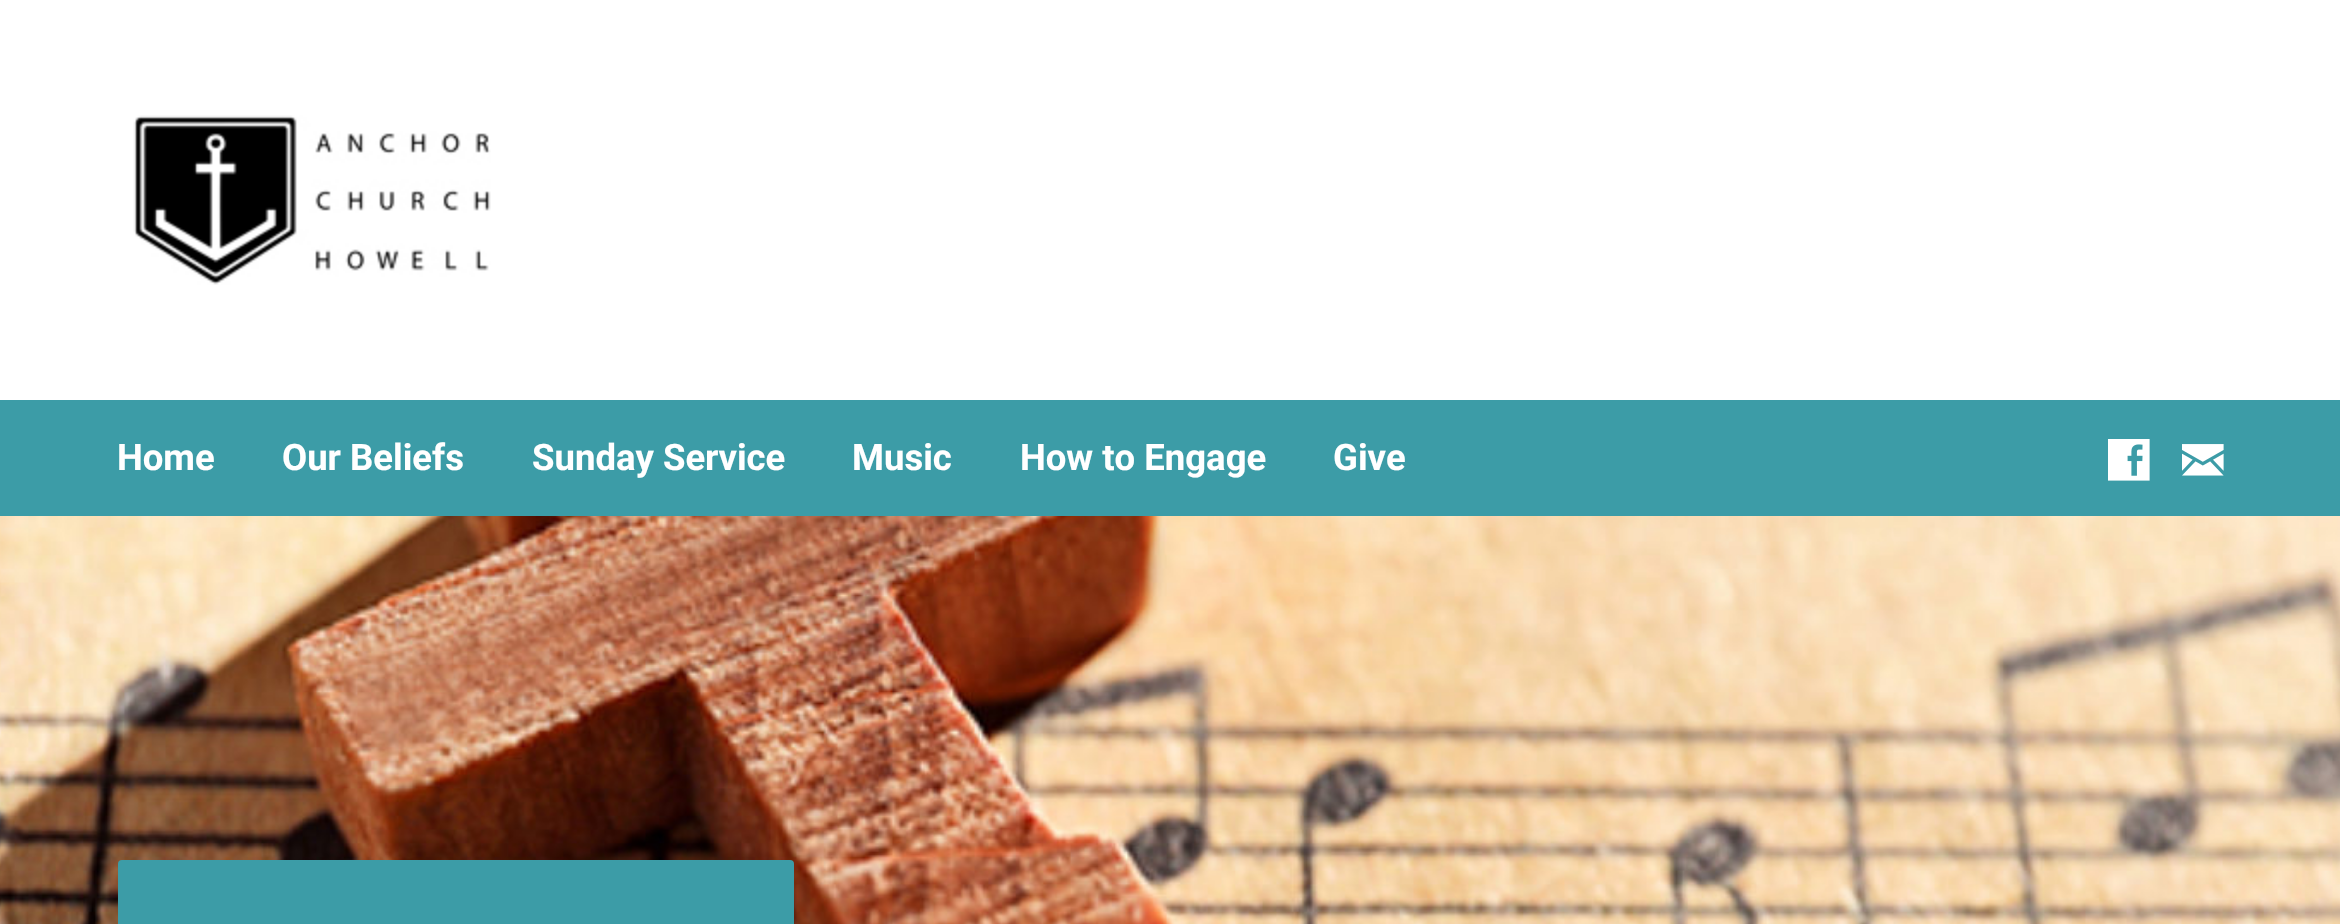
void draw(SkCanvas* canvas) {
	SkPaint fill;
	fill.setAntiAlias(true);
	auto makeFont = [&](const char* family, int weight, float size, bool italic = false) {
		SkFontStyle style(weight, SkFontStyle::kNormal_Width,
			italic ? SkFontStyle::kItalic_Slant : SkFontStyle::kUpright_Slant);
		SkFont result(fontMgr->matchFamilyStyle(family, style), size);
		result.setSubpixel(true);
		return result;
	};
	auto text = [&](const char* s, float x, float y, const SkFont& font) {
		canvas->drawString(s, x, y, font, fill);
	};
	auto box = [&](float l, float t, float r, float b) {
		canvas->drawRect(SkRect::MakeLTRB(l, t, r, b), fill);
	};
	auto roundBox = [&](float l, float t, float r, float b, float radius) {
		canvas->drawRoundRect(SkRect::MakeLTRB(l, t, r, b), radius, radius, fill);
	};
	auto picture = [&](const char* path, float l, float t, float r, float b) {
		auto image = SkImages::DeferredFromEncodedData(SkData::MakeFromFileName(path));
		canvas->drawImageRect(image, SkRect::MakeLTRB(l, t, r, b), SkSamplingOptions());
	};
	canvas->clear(0xFFFFFFFF);
	picture("image0.png", 133, 115, 491, 285);
	fill.setColor(0xFF3C9CA7);
	box(0, 400, 2340, 516);
	picture("image1.png", 2108, 439, 2150, 481);
	picture("image2.png", 2182, 444, 2224, 476);
	picture("image3.png", 0, 516, 2340, 924);
	roundBox(118, 860, 794, 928, 4);
	auto font1 = makeFont("Roboto", 700, 36.5f);
	fill.setColor(0xFFFFFFFF);
	text("Home", 117, 470, font1);
	text("Our Beliefs", 282, 470, font1);
	text("Sunday Service", 532, 470, font1);
	text("Music", 852, 470, font1);
	text("How to Engage", 1020, 470, font1);
	text("Give", 1333, 470, font1);
}
